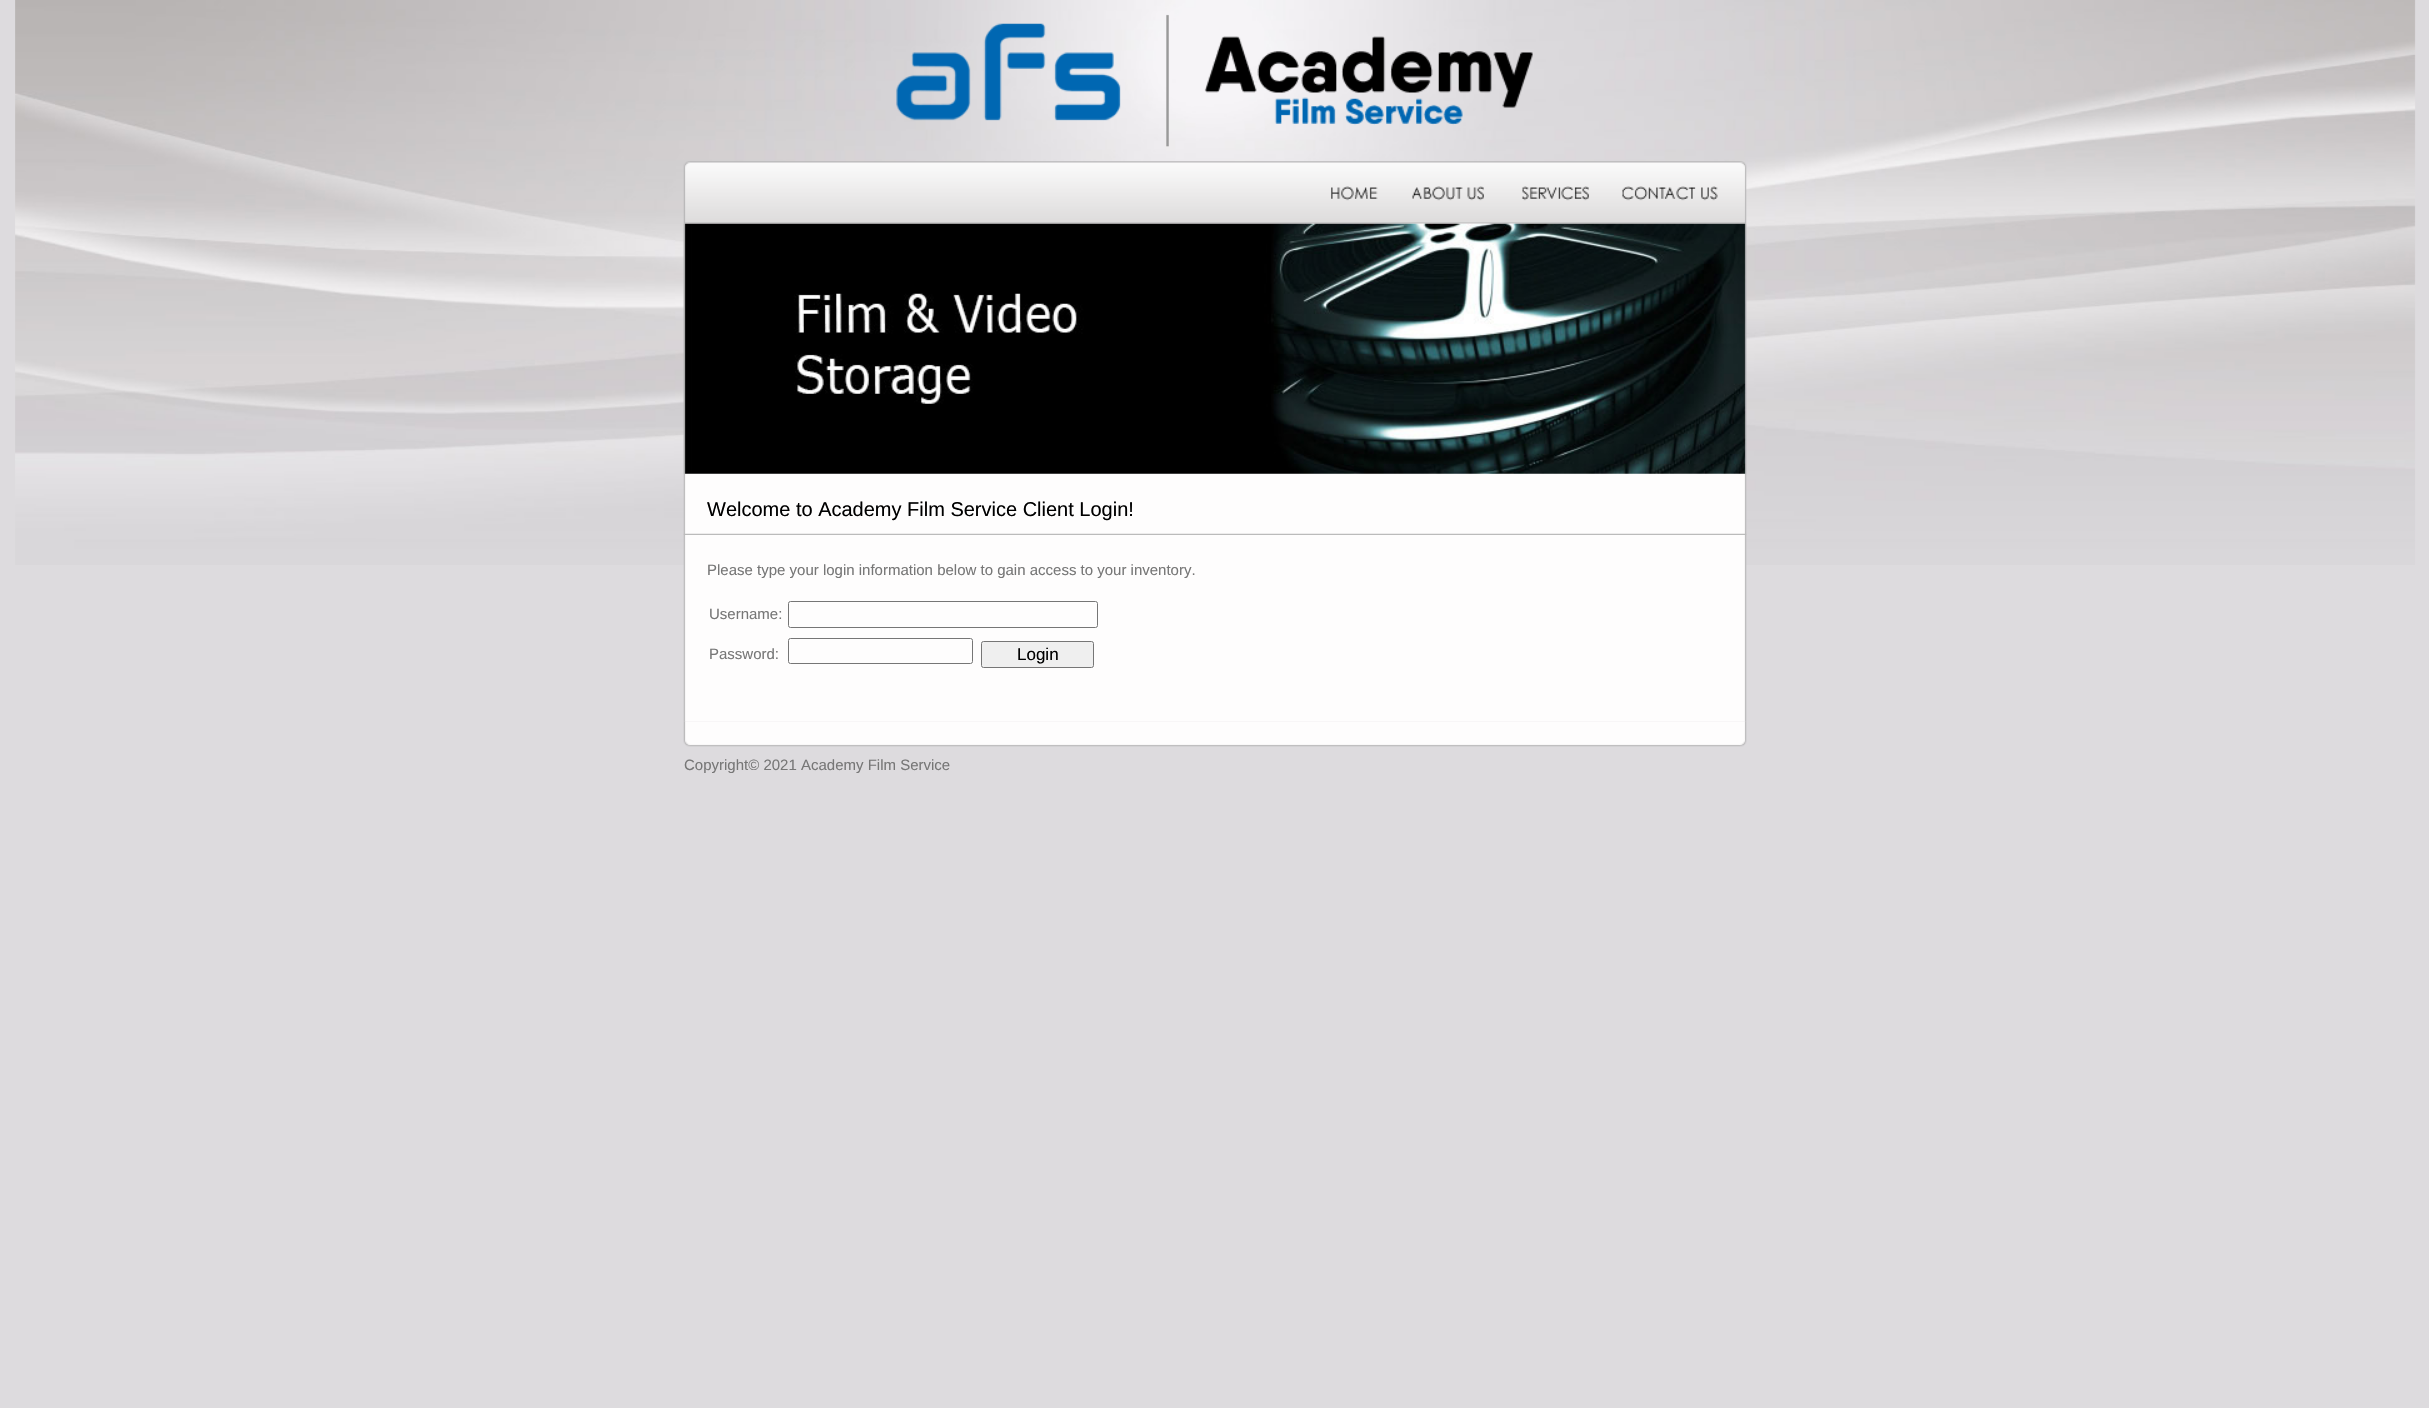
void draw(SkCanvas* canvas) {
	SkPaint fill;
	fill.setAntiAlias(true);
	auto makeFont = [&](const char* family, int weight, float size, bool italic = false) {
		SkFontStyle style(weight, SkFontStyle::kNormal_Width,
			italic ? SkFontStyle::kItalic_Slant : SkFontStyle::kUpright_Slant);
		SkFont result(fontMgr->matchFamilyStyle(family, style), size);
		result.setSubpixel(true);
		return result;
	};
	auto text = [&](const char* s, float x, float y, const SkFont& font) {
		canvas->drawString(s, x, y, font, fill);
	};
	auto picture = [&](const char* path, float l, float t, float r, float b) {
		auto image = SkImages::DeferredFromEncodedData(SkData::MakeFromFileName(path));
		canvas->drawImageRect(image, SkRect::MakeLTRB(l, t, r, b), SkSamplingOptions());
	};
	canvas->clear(0xFFDDDBDE);
	picture("image0.png", 15, 0, 2416, 565);
	picture("image1.png", 896, 14, 1533, 147);
	picture("image2.png", 683, 161, 1747, 224);
	picture("image3.png", 1331, 186, 1378, 201);
	picture("image4.png", 1412, 186, 1484, 201);
	picture("image5.png", 1522, 186, 1589, 201);
	picture("image6.png", 1622, 186, 1718, 201);
	picture("image7.png", 683, 223, 1747, 722);
	picture("image8.png", 683, 223, 1747, 474);
	picture("image9.png", 683, 533, 1747, 535);
	fill.setStyle(SkPaint::kStroke_Style);
	fill.setStrokeWidth(1);
	fill.setColor(0xFF767676);
	canvas->drawRoundRect(SkRect::MakeLTRB(788.5f, 601.5f, 1097.5f, 627.5f), 2, 2, fill);
	canvas->drawRoundRect(SkRect::MakeLTRB(788.5f, 638.5f, 972.5f, 663.5f), 2, 2, fill);
	fill.setStyle(SkPaint::kFill_Style);
	fill.setColor(0xFFEFEFEF);
	canvas->drawRoundRect(SkRect::MakeLTRB(981.5f, 641.5f, 1093.5f, 667.5f), 2, 2, fill);
	fill.setStyle(SkPaint::kStroke_Style);
	fill.setColor(0xFF767676);
	canvas->drawRoundRect(SkRect::MakeLTRB(981.5f, 641.5f, 1093.5f, 667.5f), 2, 2, fill);
	picture("image10.png", 683, 721, 1747, 747);
	auto font1 = makeFont("Liberation Sans", 400, 20);
	fill.setStyle(SkPaint::kFill_Style);
	fill.setColor(0xFF000000);
	text("Welcome to Academy Film Service Client Login!", 707, 516, font1);
	auto font2 = makeFont("Liberation Sans", 400, 15);
	fill.setColor(0xFF777777);
	text("Please type your login information below to gain access to your inventory.", 707, 575, font2);
	text("Username:", 709, 619, font2);
	text("Password:", 709, 659, font2);
	auto font3 = makeFont("Liberation Sans", 400, 17);
	fill.setColor(0xFF000000);
	text("Login", 1017, 660, font3);
	fill.setColor(0xFF777777);
	text("Copyright© 2021 Academy Film Service", 684, 770, font2);
}
